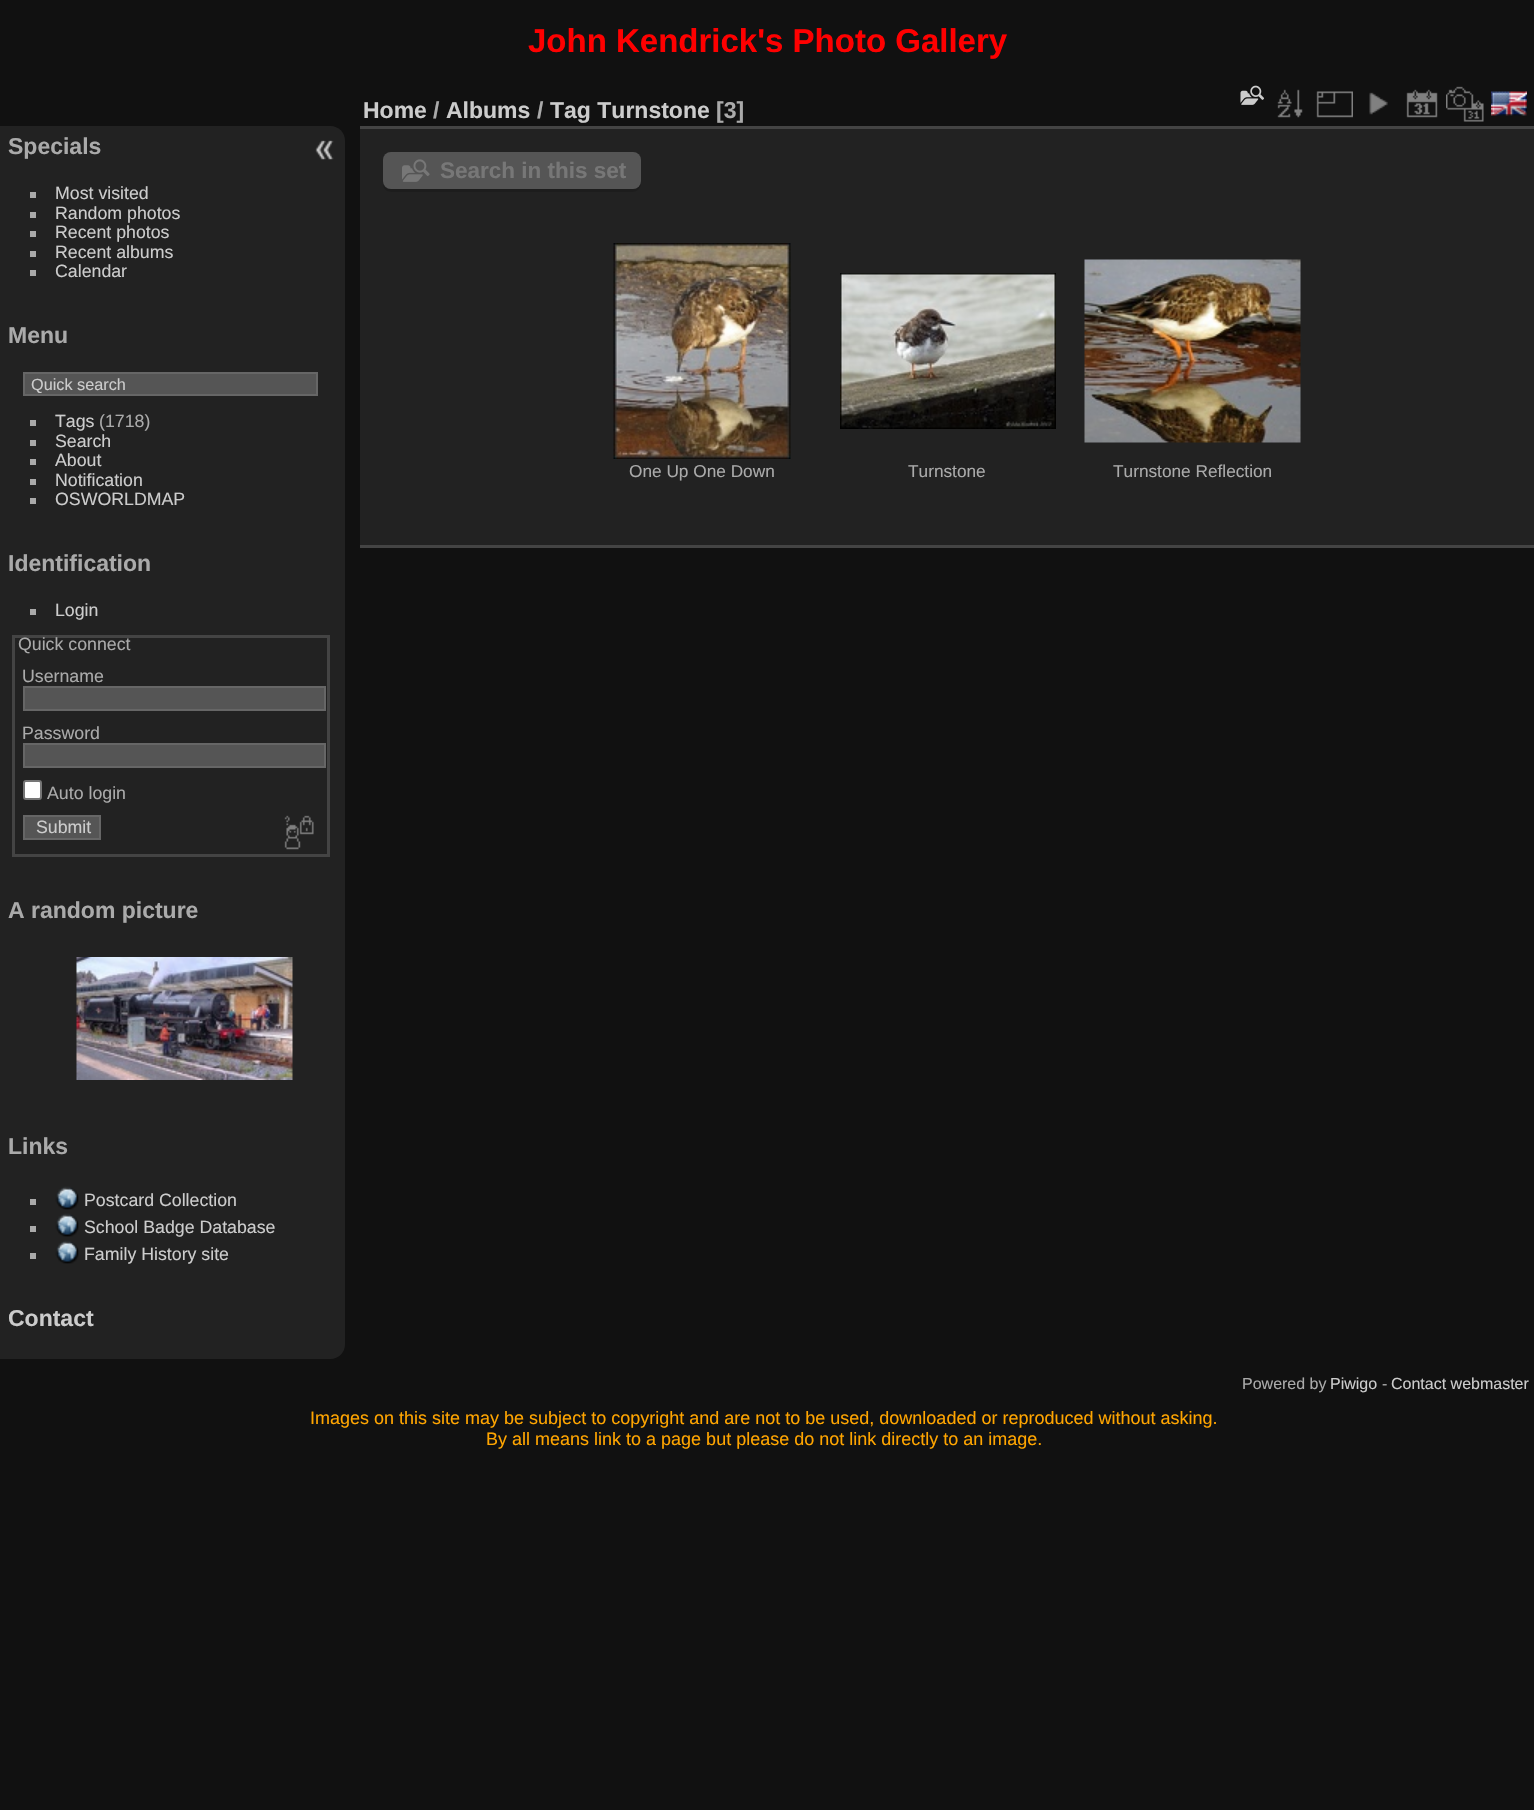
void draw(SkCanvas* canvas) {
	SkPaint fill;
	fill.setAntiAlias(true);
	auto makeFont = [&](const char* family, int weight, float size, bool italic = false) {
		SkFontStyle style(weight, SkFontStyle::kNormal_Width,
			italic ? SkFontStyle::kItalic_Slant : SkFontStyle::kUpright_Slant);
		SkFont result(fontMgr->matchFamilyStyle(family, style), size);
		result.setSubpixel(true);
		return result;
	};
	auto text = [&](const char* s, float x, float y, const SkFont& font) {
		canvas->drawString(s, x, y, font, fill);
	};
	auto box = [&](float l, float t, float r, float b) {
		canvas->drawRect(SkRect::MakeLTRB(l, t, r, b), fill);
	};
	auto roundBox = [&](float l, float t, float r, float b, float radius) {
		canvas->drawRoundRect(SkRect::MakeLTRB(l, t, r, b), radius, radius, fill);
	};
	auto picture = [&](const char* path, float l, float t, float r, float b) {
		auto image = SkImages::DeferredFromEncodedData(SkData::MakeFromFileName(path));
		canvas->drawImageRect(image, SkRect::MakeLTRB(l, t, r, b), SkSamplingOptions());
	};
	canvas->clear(0xFF111111);
	fill.setColor(0xFF222222);
	canvas->drawPath(SkPathBuilder().moveTo(0, 126).lineTo(330, 126).cubicTo(338.5f, 126, 345, 132.5f, 345, 141).lineTo(345, 1344).cubicTo(345, 1352.5f, 338.5f, 1359, 330, 1359).lineTo(0, 1359).close().detach(), fill);
	fill.setColor(0xFFAAAAAA);
	box(30, 192, 36, 198);
	box(30, 212, 36, 218);
	box(30, 231, 36, 237);
	box(30, 251, 36, 257);
	box(30, 270, 36, 276);
	fill.setColor(0xFF555555);
	canvas->drawRect(SkRect::MakeLTRB(24, 373, 317, 395), fill);
	fill.setStyle(SkPaint::kStroke_Style);
	fill.setStrokeWidth(2);
	fill.setColor(0xFF666666);
	canvas->drawRect(SkRect::MakeLTRB(24, 373, 317, 395), fill);
	fill.setStyle(SkPaint::kFill_Style);
	fill.setColor(0xFFAAAAAA);
	box(30, 420, 36, 426);
	box(30, 440, 36, 446);
	box(30, 459, 36, 465);
	box(30, 479, 36, 485);
	box(30, 498, 36, 504);
	box(30, 609, 36, 615);
	fill.setStyle(SkPaint::kStroke_Style);
	fill.setStrokeWidth(3);
	fill.setColor(0xFF444444);
	canvas->drawRect(SkRect::MakeLTRB(13.5f, 636.5f, 328.5f, 855.5f), fill);
	fill.setStyle(SkPaint::kFill_Style);
	fill.setColor(0xFF555555);
	canvas->drawRect(SkRect::MakeLTRB(24, 687, 325, 710), fill);
	fill.setStyle(SkPaint::kStroke_Style);
	fill.setStrokeWidth(2);
	fill.setColor(0xFF666666);
	canvas->drawRect(SkRect::MakeLTRB(24, 687, 325, 710), fill);
	fill.setStyle(SkPaint::kFill_Style);
	fill.setColor(0xFF555555);
	canvas->drawRect(SkRect::MakeLTRB(24, 744, 325, 767), fill);
	fill.setStyle(SkPaint::kStroke_Style);
	fill.setColor(0xFF666666);
	canvas->drawRect(SkRect::MakeLTRB(24, 744, 325, 767), fill);
	fill.setStyle(SkPaint::kFill_Style);
	fill.setColor(0xFFFFFFFF);
	canvas->drawRoundRect(SkRect::MakeLTRB(24, 781, 41, 799), 2, 2, fill);
	fill.setStyle(SkPaint::kStroke_Style);
	fill.setColor(0xFF767676);
	canvas->drawRoundRect(SkRect::MakeLTRB(24, 781, 41, 799), 2, 2, fill);
	fill.setStyle(SkPaint::kFill_Style);
	fill.setColor(0xFF555555);
	canvas->drawRect(SkRect::MakeLTRB(24, 816, 100, 839), fill);
	fill.setStyle(SkPaint::kStroke_Style);
	fill.setColor(0xFF666666);
	canvas->drawRect(SkRect::MakeLTRB(24, 816, 100, 839), fill);
	picture("image0.png", 284, 815, 314, 850);
	picture("image1.png", 76, 957, 293, 1080);
	fill.setStyle(SkPaint::kFill_Style);
	fill.setColor(0xFFAAAAAA);
	box(30, 1199, 36, 1205);
	picture("image2.png", 55, 1186, 79, 1210);
	box(30, 1226, 36, 1232);
	picture("image2.png", 55, 1213, 79, 1237);
	box(30, 1253, 36, 1259);
	picture("image2.png", 55, 1240, 79, 1264);
	picture("image3.png", 315, 140, 334, 160);
	fill.setColor(0xFF222222);
	box(360, 129, 1534, 545);
	fill.setColor(0xFF444444);
	box(360, 545, 1534, 548);
	box(360, 126, 1534, 129);
	picture("image4.png", 1240, 85, 1264, 105);
	picture("image5.png", 1277, 89, 1303, 118);
	picture("image6.png", 1316, 91, 1353, 118);
	picture("image7.png", 1369, 92, 1388, 115);
	picture("image8.png", 1406, 89, 1438, 118);
	picture("image9.png", 1446, 86, 1484, 122);
	picture("image10.png", 1491, 91, 1527, 116);
	fill.setColor(0xFF1D1D1D);
	canvas->drawPath(SkPathBuilder().moveTo(383, 184).cubicTo(383, 189, 387, 192, 391, 192).lineTo(633, 192).cubicTo(637, 192, 641, 188, 641, 184).lineTo(641, 163).lineTo(640, 160).lineTo(640, 182).cubicTo(640, 186, 637, 189, 633, 189).lineTo(390, 189).cubicTo(387, 189, 384, 187, 383, 184).close().detach(), fill);
	fill.setColor(0xFF555555);
	roundBox(383, 152, 641, 189, 8);
	picture("image11.png", 402, 159, 430, 182);
	picture("image12.png", 613, 243, 791, 459);
	picture("image13.png", 840, 273, 1056, 429);
	picture("image14.png", 1084, 259, 1301, 443);
	auto font1 = makeFont("Liberation Sans", 700, 33);
	fill.setColor(0xFFFF0000);
	text("John Kendrick's Photo Gallery", 528, 52, font1);
	auto font2 = makeFont("Liberation Sans", 700, 23);
	fill.setColor(0xFFAAAAAA);
	text("Specials", 8, 154, font2);
	auto font3 = makeFont("Liberation Sans", 400, 17.75f);
	fill.setColor(0xFFCCCCCC);
	text("Most visited", 55, 199, font3);
	text("Random photos", 55, 219, font3);
	text("Recent photos", 55, 238, font3);
	text("Recent albums", 55, 258, font3);
	text("Calendar", 55, 277, font3);
	fill.setColor(0xFFAAAAAA);
	text("Menu", 8, 343, font2);
	auto font4 = makeFont("Liberation Sans", 400, 16.25f);
	fill.setColor(0xFFCCCCCC);
	text("Quick search", 31, 390, font4);
	text("Tags", 55, 427, font3);
	fill.setColor(0xFFAAAAAA);
	text("(1718)", 99, 427, font3);
	fill.setColor(0xFFCCCCCC);
	text("Search", 55, 447, font3);
	text("About", 55, 466, font3);
	text("Notification", 55, 486, font3);
	text("OSWORLDMAP", 55, 505, font3);
	fill.setColor(0xFFAAAAAA);
	text("Identification", 8, 571, font2);
	fill.setColor(0xFFCCCCCC);
	text("Login", 55, 616, font3);
	fill.setColor(0xFFAAAAAA);
	text("Quick connect", 18, 650, font3);
	text("Username", 22, 682, font3);
	text("Password", 22, 739, font3);
	text("Auto login", 47, 799, font3);
	fill.setColor(0xFFCCCCCC);
	text("Submit", 36, 833, font3);
	fill.setColor(0xFFAAAAAA);
	text("A random picture", 8, 918, font2);
	text("Links", 8, 1154, font2);
	fill.setColor(0xFFCCCCCC);
	text("Postcard Collection", 84, 1206, font3);
	text("School Badge Database", 84, 1233, font3);
	text("Family History site", 84, 1260, font3);
	text("Contact", 8, 1326, font2);
	text("Home", 363, 118, font2);
	fill.setColor(0xFFAAAAAA);
	text("/", 433, 118, font2);
	fill.setColor(0xFFCCCCCC);
	text("Albums", 446, 118, font2);
	fill.setColor(0xFFAAAAAA);
	text("/", 537, 118, font2);
	fill.setColor(0xFFCCCCCC);
	text("Tag Turnstone", 550, 118, font2);
	fill.setColor(0xFFAAAAAA);
	text("[3]", 716, 118, font2);
	auto font5 = makeFont("Liberation Sans", 700, 22.5f);
	fill.setColor(0xFF777777);
	text("Search in this set", 440, 178, font5);
	auto font6 = makeFont("Liberation Sans", 400, 17.25f);
	fill.setColor(0xFFAAAAAA);
	text("One Up One Down", 629, 477, font6);
	text("Turnstone", 908, 477, font6);
	text("Turnstone Reflection", 1113, 477, font6);
	auto font7 = makeFont("Liberation Sans", 400, 16);
	text("Powered by", 1242, 1389, font7);
	fill.setColor(0xFFCCCCCC);
	text("Piwigo", 1330, 1389, font7);
	fill.setColor(0xFFAAAAAA);
	text("-", 1382, 1389, font7);
	fill.setColor(0xFFCCCCCC);
	text("Contact webmaster", 1391, 1389, font7);
	auto font8 = makeFont("Liberation Sans", 400, 18);
	fill.setColor(0xFFFFA500);
	text("Images on this site may be subject to copyright and are not to be used, downloaded or reproduced without asking.", 310, 1424, font8);
	text("By all means link to a page but please do not link directly to an image.", 486, 1445, font8);
}
